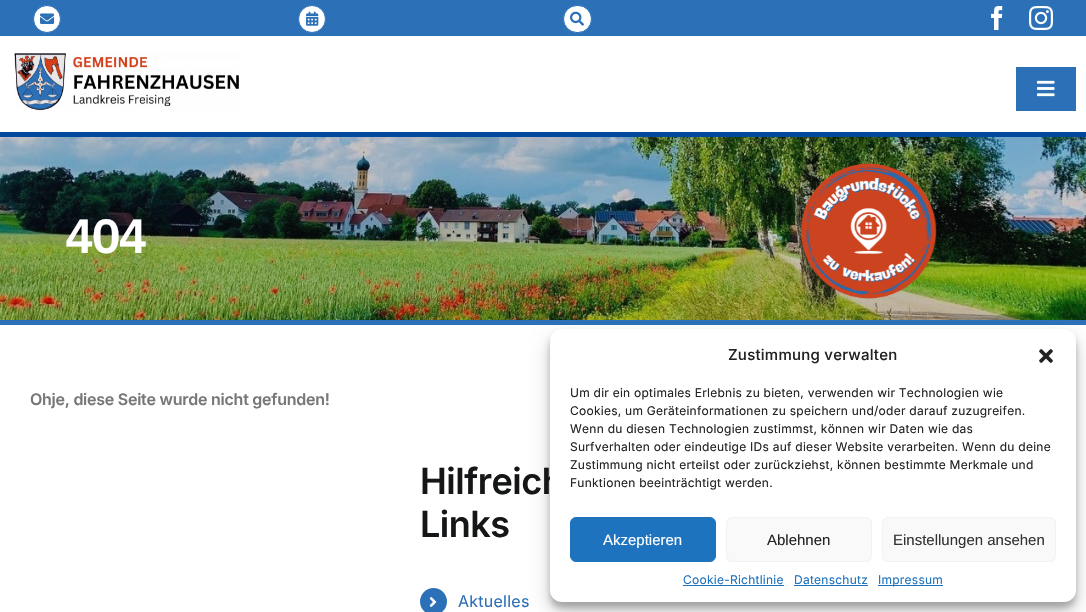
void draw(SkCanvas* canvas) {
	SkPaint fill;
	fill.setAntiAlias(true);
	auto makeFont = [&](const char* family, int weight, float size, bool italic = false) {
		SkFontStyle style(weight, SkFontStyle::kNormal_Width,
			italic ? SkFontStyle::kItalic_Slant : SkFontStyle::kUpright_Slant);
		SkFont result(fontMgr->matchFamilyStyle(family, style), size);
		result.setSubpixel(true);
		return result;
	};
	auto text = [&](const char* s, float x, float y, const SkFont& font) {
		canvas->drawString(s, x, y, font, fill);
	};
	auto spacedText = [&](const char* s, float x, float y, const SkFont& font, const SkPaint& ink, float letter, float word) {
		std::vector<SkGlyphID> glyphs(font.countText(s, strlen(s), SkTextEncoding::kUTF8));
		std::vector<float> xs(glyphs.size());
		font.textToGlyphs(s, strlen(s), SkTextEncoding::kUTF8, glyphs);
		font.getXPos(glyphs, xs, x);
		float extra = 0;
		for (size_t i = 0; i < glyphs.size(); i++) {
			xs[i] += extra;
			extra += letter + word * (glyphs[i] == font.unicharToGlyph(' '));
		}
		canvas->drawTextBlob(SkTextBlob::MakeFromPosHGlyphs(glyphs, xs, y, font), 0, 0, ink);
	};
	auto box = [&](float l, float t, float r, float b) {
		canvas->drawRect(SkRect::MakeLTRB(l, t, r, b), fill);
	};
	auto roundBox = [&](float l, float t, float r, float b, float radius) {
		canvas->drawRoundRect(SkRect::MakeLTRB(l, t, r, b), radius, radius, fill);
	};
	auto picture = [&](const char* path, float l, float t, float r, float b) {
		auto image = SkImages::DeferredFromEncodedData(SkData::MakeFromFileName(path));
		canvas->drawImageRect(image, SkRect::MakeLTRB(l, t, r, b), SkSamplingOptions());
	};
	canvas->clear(0xFFFFFFFF);
	fill.setColor(0xFF2C71B8);
	box(0, 0, 1086, 36);
	fill.setColor(0xFFFFFFFF);
	canvas->drawCircle(47, 19, 13.5f, fill);
	fill.setStyle(SkPaint::kStroke_Style);
	fill.setStrokeWidth(1);
	fill.setColor(0xFF2C71B8);
	canvas->drawCircle(47, 19, 13.5f, fill);
	picture("image0.png", 40, 13, 55, 24);
	fill.setStyle(SkPaint::kFill_Style);
	fill.setColor(0xFFFFFFFF);
	canvas->drawCircle(312, 19, 13.5f, fill);
	fill.setStyle(SkPaint::kStroke_Style);
	fill.setColor(0xFF2C71B8);
	canvas->drawCircle(312, 19, 13.5f, fill);
	picture("image1.png", 306, 11, 319, 26);
	fill.setStyle(SkPaint::kFill_Style);
	fill.setColor(0xFFFFFFFF);
	canvas->drawRoundRect(SkRect::MakeLTRB(563.5f, 5.5f, 591.5f, 32.5f), 13.5f, 13.5f, fill);
	fill.setStyle(SkPaint::kStroke_Style);
	fill.setColor(0xFF2C71B8);
	canvas->drawRoundRect(SkRect::MakeLTRB(563.5f, 5.5f, 591.5f, 32.5f), 13.5f, 13.5f, fill);
	picture("image2.png", 570, 11, 584, 26);
	picture("image3.png", 991, 6, 1003, 30);
	picture("image4.png", 1029, 6, 1053, 30);
	fill.setStyle(SkPaint::kFill_Style);
	fill.setColor(0xFF00479E);
	box(0, 132, 1086, 137);
	picture("image5.png", 14, 53, 239, 111);
	fill.setColor(0xFF2C71B8);
	box(1016, 67, 1076, 111);
	picture("image6.png", 1037, 80, 1055, 97);
	box(0, 320, 1086, 325);
	picture("image7.png", 0, 137, 1086, 320);
	picture("image8.png", 801, 163, 937, 299);
	canvas->drawCircle(433.5f, 601.5f, 13.5f, fill);
	picture("image9.png", 429, 597, 437, 607);
	fill.setColor(0x3B000000);
	fill.setMaskFilter(SkMaskFilter::MakeBlur(kNormal_SkBlurStyle, 3));
	canvas->drawRoundRect(SkRect::MakeLTRB(550, 335, 1076, 608), 12, 12, fill);
	fill.setMaskFilter(nullptr);
	fill.setColor(0x30000000);
	fill.setMaskFilter(SkMaskFilter::MakeBlur(kNormal_SkBlurStyle, 10));
	canvas->drawRoundRect(SkRect::MakeLTRB(550, 339, 1076, 612), 12, 12, fill);
	fill.setMaskFilter(nullptr);
	auto font1 = makeFont("IBM Plex Sans", 600, 48);
	fill.setColor(0xFFFFFFFF);
	spacedText("404", 65, 253, font1, fill, -2, 0);
	auto font2 = makeFont("Inter", 600, 16);
	fill.setColor(0xFF777777);
	spacedText("Ohje, diese Seite wurde nicht gefunden!", 30, 405, font2, fill, -0.25f, 0);
	auto font3 = makeFont("Inter", 600, 36);
	fill.setColor(0xFF141617);
	spacedText("Hilfreich", 420, 494, font3, fill, -0.5f, 0);
	spacedText("Links", 420, 537, font3, fill, -0.5f, 0);
	auto font4 = makeFont("Inter", 400, 16);
	fill.setColor(0xFF2C6FB6);
	spacedText("Aktuelles", 458, 607, font4, fill, 0.25f, 0);
	fill.setColor(0xFFFFFFFF);
	roundBox(550, 329, 1076, 602, 12);
	auto font5 = makeFont("Inter", 500, 15);
	fill.setColor(0xFF222222);
	spacedText("Zustimmung verwalten", 728, 360, font5, fill, 0.25f, 0);
	picture("image10.png", 1039, 349, 1053, 363);
	auto font6 = makeFont("Inter", 400, 12);
	spacedText("Um dir ein optimales Erlebnis zu bieten, verwenden wir Technologien wie", 570, 397, font6, fill, 0.25f, 0);
	spacedText("Cookies, um Geräteinformationen zu speichern und/oder darauf zuzugreifen.", 570, 415, font6, fill, 0.25f, 0);
	spacedText("Wenn du diesen Technologien zustimmst, können wir Daten wie das", 570, 433, font6, fill, 0.25f, 0);
	spacedText("Surfverhalten oder eindeutige IDs auf dieser Website verarbeiten. Wenn du deine", 570, 451, font6, fill, 0.25f, 0);
	spacedText("Zustimmung nicht erteilst oder zurückziehst, können bestimmte Merkmale und", 570, 469, font6, fill, 0.25f, 0);
	spacedText("Funktionen beeinträchtigt werden.", 570, 487, font6, fill, 0.25f, 0);
	fill.setColor(0xFF1E73BE);
	canvas->drawRoundRect(SkRect::MakeLTRB(570.5f, 517.5f, 715.5f, 561.5f), 5.5f, 5.5f, fill);
	fill.setStyle(SkPaint::kStroke_Style);
	canvas->drawRoundRect(SkRect::MakeLTRB(570.5f, 517.5f, 715.5f, 561.5f), 5.5f, 5.5f, fill);
	auto font7 = makeFont("Liberation Sans", 400, 15);
	fill.setStyle(SkPaint::kFill_Style);
	fill.setColor(0xFFFFFFFF);
	text("Akzeptieren", 603, 545, font7);
	fill.setColor(0xFFF9F9F9);
	canvas->drawRoundRect(SkRect::MakeLTRB(726.5f, 517.5f, 871.5f, 561.5f), 5.5f, 5.5f, fill);
	fill.setStyle(SkPaint::kStroke_Style);
	fill.setColor(0xFFF2F2F2);
	canvas->drawRoundRect(SkRect::MakeLTRB(726.5f, 517.5f, 871.5f, 561.5f), 5.5f, 5.5f, fill);
	fill.setStyle(SkPaint::kFill_Style);
	fill.setColor(0xFF222222);
	text("Ablehnen", 767, 545, font7);
	fill.setColor(0xFFF9F9F9);
	canvas->drawRoundRect(SkRect::MakeLTRB(882.5f, 517.5f, 1055.5f, 561.5f), 5.5f, 5.5f, fill);
	fill.setStyle(SkPaint::kStroke_Style);
	fill.setColor(0xFFF2F2F2);
	canvas->drawRoundRect(SkRect::MakeLTRB(882.5f, 517.5f, 1055.5f, 561.5f), 5.5f, 5.5f, fill);
	fill.setStyle(SkPaint::kFill_Style);
	fill.setColor(0xFF333333);
	text("Einstellungen ansehen", 893, 545, font7);
	fill.setColor(0xFF1E73BE);
	spacedText("Cookie-Richtlinie", 683, 584, font6, fill, 0.25f, 0);
	box(683, 585, 784, 586);
	spacedText("Datenschutz", 794, 584, font6, fill, 0.25f, 0);
	box(794, 585, 868, 586);
	box(878, 585, 943, 586);
	spacedText("Impressum", 878, 584, font6, fill, 0.25f, 0);
}
